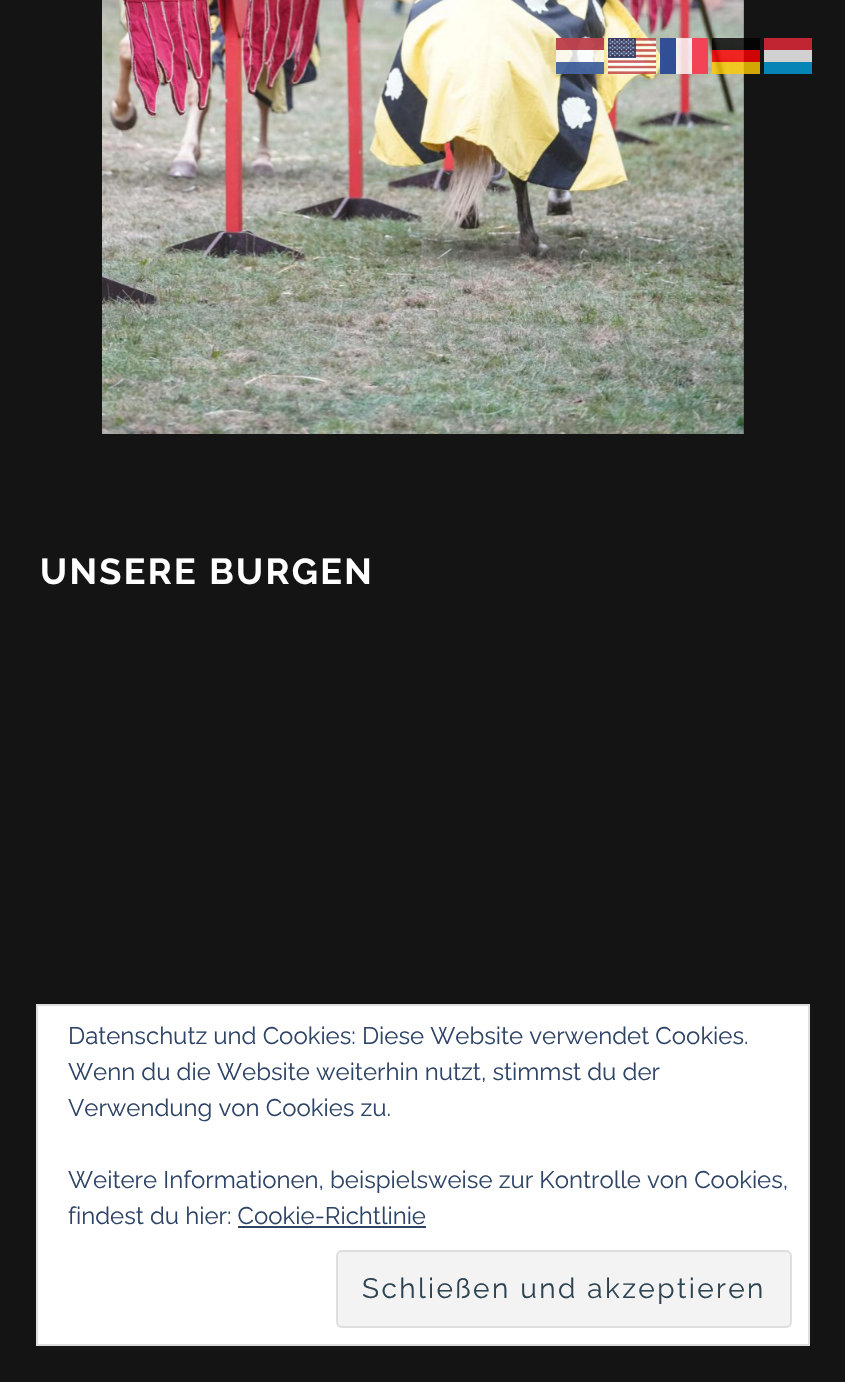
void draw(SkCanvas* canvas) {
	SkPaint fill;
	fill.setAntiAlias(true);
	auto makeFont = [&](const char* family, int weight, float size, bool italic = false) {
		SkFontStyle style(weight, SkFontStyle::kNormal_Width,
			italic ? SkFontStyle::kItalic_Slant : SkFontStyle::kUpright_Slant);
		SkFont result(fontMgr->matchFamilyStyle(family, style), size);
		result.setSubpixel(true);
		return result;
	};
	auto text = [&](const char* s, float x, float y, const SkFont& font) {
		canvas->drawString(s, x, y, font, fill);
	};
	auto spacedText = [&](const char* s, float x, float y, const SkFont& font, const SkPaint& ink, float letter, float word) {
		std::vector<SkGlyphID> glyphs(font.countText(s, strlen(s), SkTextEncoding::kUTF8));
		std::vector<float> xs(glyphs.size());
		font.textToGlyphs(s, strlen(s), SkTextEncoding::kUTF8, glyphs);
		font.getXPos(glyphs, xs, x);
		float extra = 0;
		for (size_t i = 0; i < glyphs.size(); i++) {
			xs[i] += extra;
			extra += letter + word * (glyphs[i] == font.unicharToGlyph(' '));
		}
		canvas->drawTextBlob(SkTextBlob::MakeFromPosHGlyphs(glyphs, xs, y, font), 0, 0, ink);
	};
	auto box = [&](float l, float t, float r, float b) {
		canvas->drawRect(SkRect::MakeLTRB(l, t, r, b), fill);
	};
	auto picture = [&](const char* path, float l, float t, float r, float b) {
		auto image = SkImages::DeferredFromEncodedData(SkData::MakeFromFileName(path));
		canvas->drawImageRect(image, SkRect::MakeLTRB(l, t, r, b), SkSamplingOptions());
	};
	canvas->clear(0xFF141414);
	picture("image1.png", 102, 0, 744, 434);
	fill.setColor(0xCCFFFFFF);
	box(556, 38, 604, 74);
	fill.setColor(0xCCAE1C28);
	box(556, 38, 604, 50);
	picture("image0.png", 608, 38, 656, 74);
	fill.setColor(0xCCFFFFFF);
	box(660, 38, 708, 74);
	fill.setColor(0xCC00267F);
	box(660, 38, 676, 74);
	fill.setColor(0xCCF31830);
	box(692, 38, 708, 74);
	fill.setColor(0xCC000000);
	box(712, 38, 760, 50);
	fill.setColor(0xFFC22532);
	box(764, 38, 812, 50);
	fill.setColor(0xCCFF0000);
	box(712, 50, 760, 62);
	fill.setColor(0xFFD0D0D0);
	box(764, 50, 812, 62);
	fill.setColor(0xCC21468B);
	box(556, 62, 604, 74);
	fill.setColor(0xCCFFCC00);
	box(712, 62, 760, 74);
	fill.setColor(0xFF0485B6);
	box(764, 62, 812, 74);
	fill.setColor(0xFFFFFFFF);
	canvas->drawRect(SkRect::MakeLTRB(37, 1005, 809, 1345), fill);
	fill.setStyle(SkPaint::kStroke_Style);
	fill.setStrokeWidth(2);
	fill.setColor(0xFFDEDEDE);
	canvas->drawRect(SkRect::MakeLTRB(37, 1005, 809, 1345), fill);
	fill.setStyle(SkPaint::kFill_Style);
	fill.setColor(0xFF2E4467);
	box(238, 1226, 426, 1228);
	fill.setColor(0xFFF3F3F3);
	canvas->drawRoundRect(SkRect::MakeLTRB(337, 1251, 791, 1327), 5, 5, fill);
	fill.setStyle(SkPaint::kStroke_Style);
	fill.setColor(0xFFDEDEDE);
	canvas->drawRoundRect(SkRect::MakeLTRB(337, 1251, 791, 1327), 5, 5, fill);
	auto font1 = makeFont("Raleway", 700, 36);
	fill.setStyle(SkPaint::kFill_Style);
	fill.setColor(0xFFFFFFFF);
	spacedText("UNSERE BURGEN", 40, 584, font1, fill, 2.4f, 0);
	auto font2 = makeFont("Raleway", 400, 24);
	fill.setColor(0xFF2E4467);
	text("Datenschutz und Cookies: Diese Website verwendet Cookies.", 68, 1044, font2);
	text("Wenn du die Website weiterhin nutzt, stimmst du der", 68, 1080, font2);
	text("Verwendung von Cookies zu.", 68, 1116, font2);
	text("Weitere Informationen, beispielsweise zur Kontrolle von Cookies,", 68, 1188, font2);
	text("findest du hier: Cookie-Richtlinie", 68, 1224, font2);
	auto font3 = makeFont("Raleway", 400, 28);
	fill.setColor(0xFF2E4453);
	spacedText("Schließen und akzeptieren", 362, 1298, font3, fill, 2.4f, 0);
}
